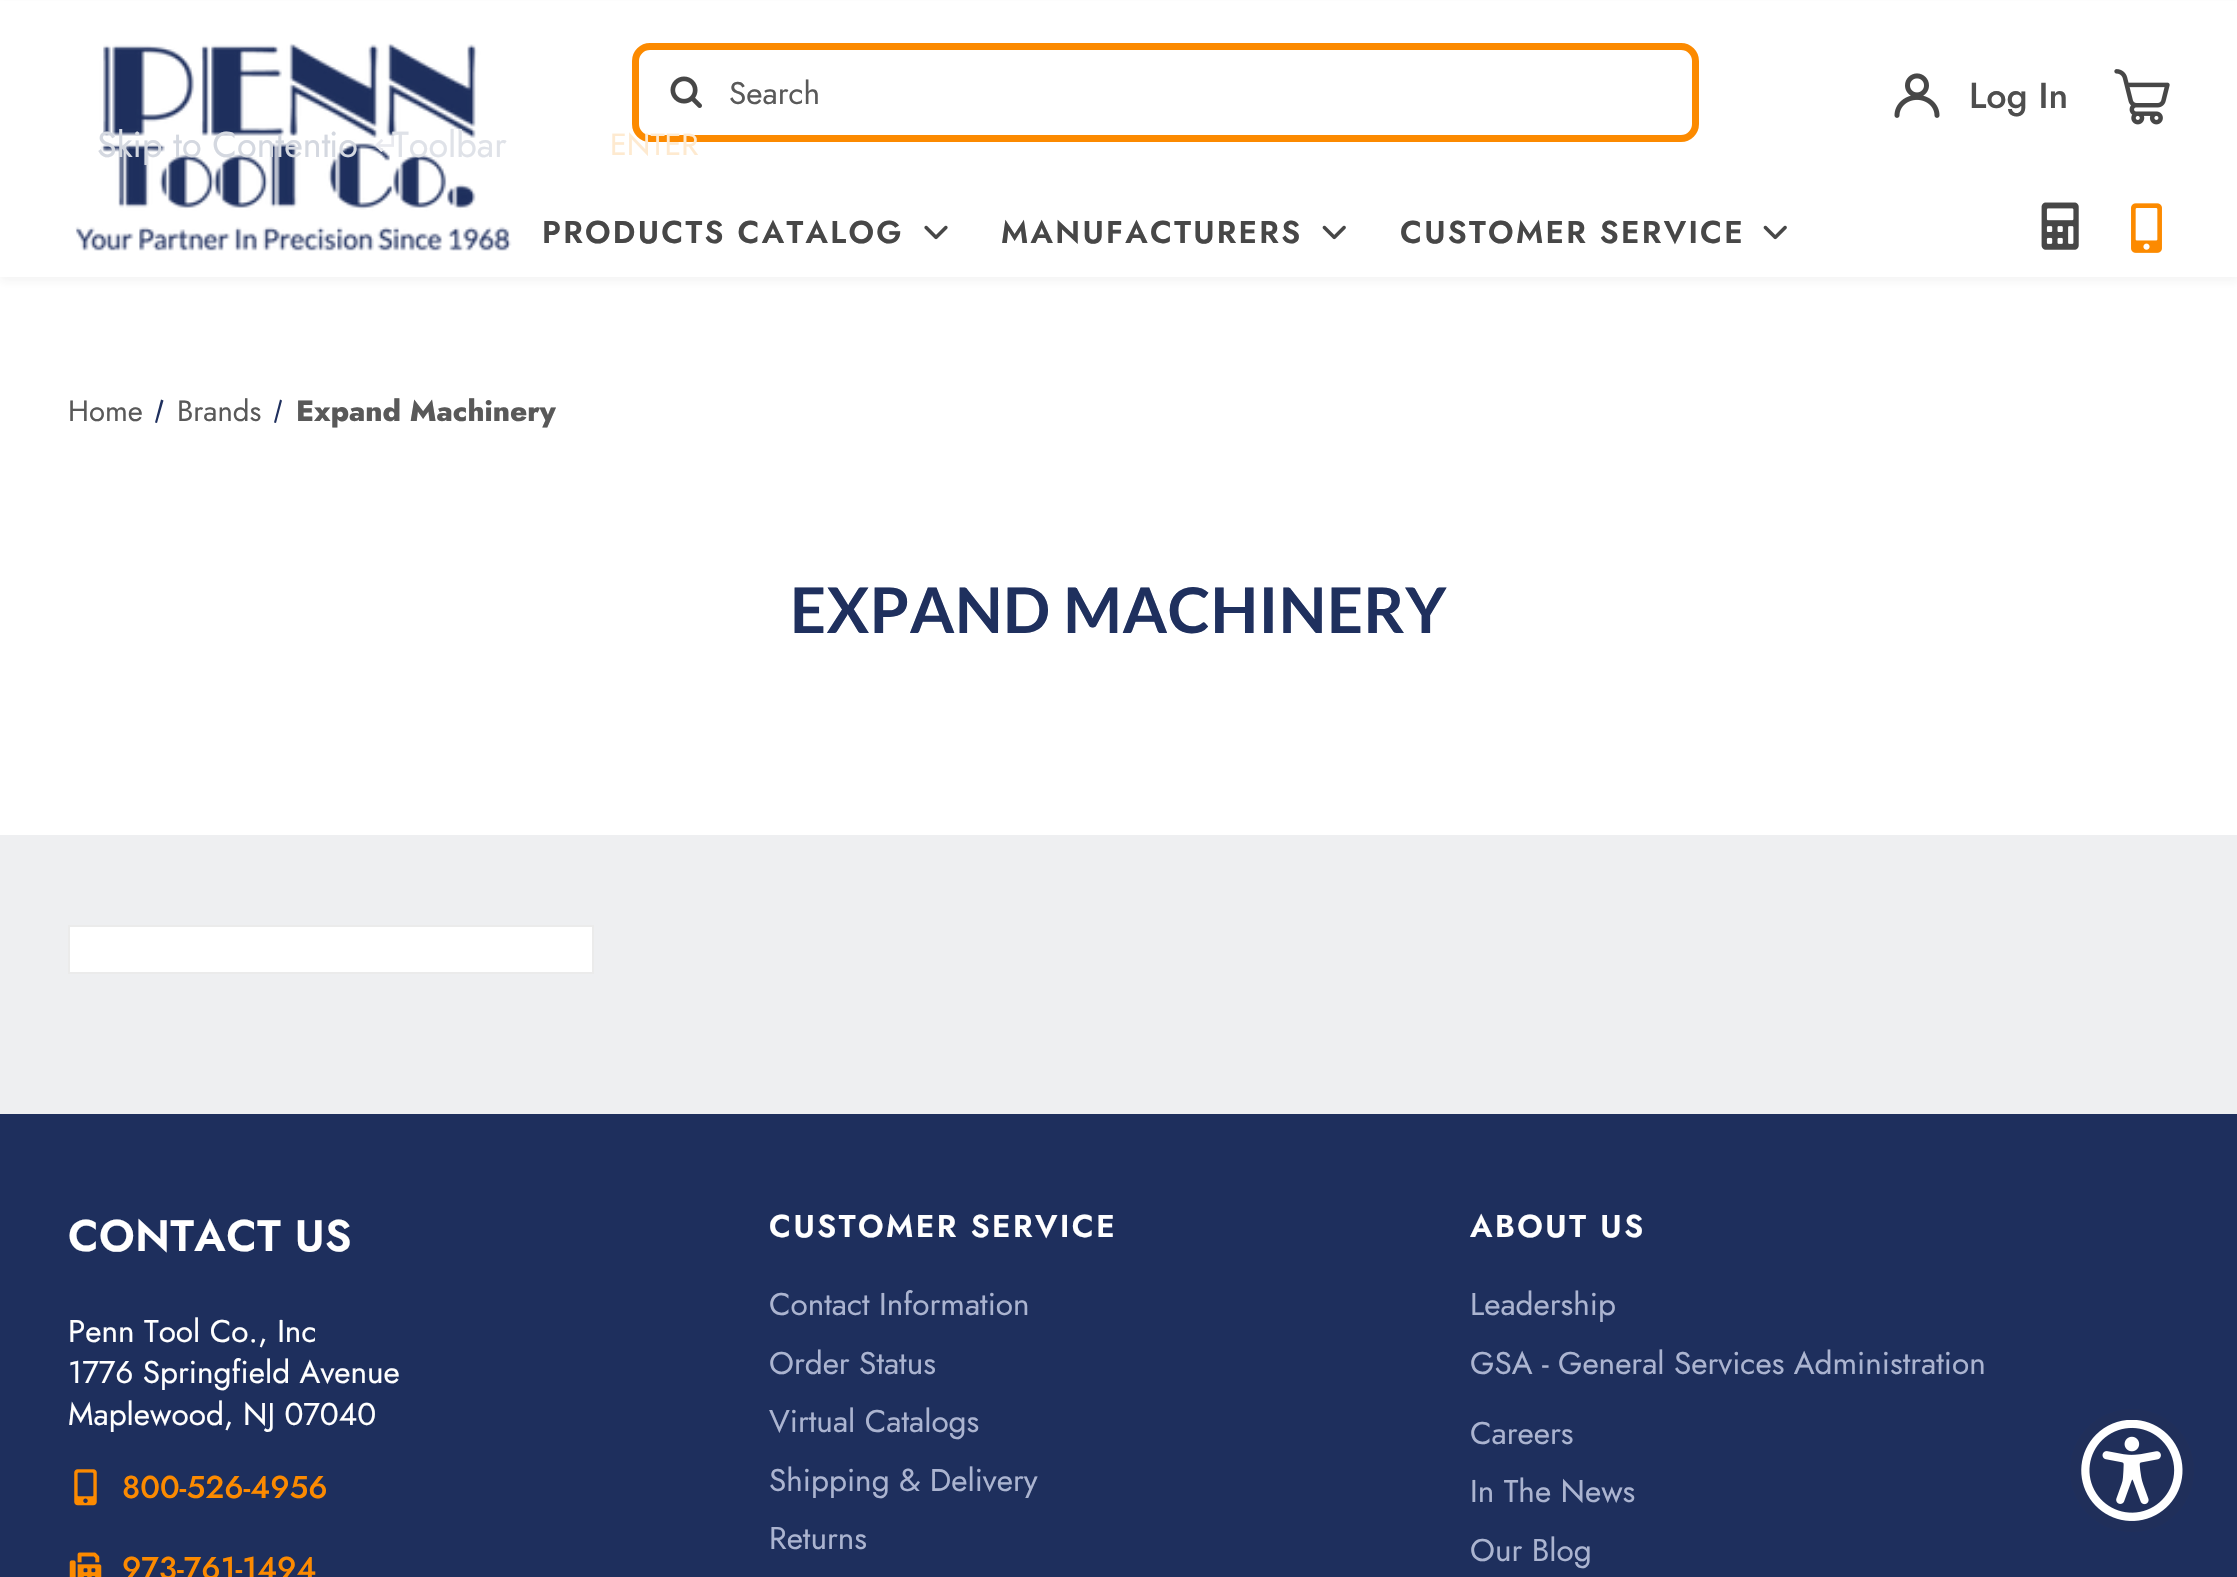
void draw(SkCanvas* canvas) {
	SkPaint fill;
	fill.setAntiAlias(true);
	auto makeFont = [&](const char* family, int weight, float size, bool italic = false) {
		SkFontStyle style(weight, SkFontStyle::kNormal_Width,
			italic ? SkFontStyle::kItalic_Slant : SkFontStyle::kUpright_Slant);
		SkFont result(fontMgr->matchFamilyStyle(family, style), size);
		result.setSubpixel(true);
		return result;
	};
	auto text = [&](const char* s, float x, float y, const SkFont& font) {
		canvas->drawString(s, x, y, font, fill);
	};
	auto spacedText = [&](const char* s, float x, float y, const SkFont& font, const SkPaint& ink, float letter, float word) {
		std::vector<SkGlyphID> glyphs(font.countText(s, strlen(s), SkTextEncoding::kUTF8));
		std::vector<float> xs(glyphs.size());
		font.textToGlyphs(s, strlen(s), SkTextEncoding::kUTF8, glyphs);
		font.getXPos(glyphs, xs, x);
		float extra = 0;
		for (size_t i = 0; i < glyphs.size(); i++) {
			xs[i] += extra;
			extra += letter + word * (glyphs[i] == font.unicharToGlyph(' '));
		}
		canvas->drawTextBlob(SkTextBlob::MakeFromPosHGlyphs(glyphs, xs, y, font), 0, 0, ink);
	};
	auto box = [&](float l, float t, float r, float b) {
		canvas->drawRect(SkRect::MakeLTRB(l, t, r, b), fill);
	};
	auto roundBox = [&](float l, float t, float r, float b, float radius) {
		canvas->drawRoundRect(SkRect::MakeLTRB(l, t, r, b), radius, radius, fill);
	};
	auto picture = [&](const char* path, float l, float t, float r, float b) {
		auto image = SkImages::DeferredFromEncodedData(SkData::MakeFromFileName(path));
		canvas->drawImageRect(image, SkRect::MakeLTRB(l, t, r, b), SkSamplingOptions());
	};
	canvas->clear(0xFFFFFFFF);
	fill.setColor(0xFF1E2F5D);
	box(0, 1114, 2237, 1577);
	fill.setColor(0xFF202F5A);
	roundBox(2070, 1409, 2194, 1532, 61.5f);
	picture("image0.png", 2081, 1420, 2183, 1521);
	fill.setColor(0x0F2C2C2C);
	fill.setMaskFilter(SkMaskFilter::MakeBlur(kNormal_SkBlurStyle, 4.5f));
	canvas->drawRect(SkRect::MakeLTRB(0, 5, 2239, 281), fill);
	fill.setMaskFilter(nullptr);
	fill.setColor(0xFFFFFFFF);
	box(0, 1, 2237, 277);
	picture("image1.png", 75, 43, 512, 251);
	fill.setStyle(SkPaint::kStroke_Style);
	fill.setStrokeWidth(7);
	fill.setColor(0xFFFC8A00);
	canvas->drawRoundRect(SkRect::MakeLTRB(635.5f, 46.5f, 1695.5f, 138.5f), 14.5f, 14.5f, fill);
	picture("image2.png", 670, 76, 702, 108);
	picture("image3.png", 1894, 73, 1940, 118);
	picture("image4.png", 2114, 69, 2170, 125);
	picture("image5.png", 924, 225, 948, 240);
	picture("image6.png", 1322, 225, 1346, 240);
	picture("image6.png", 1763, 225, 1787, 240);
	picture("image7.png", 2041, 202, 2079, 250);
	picture("image8.png", 2131, 203, 2162, 253);
	fill.setStyle(SkPaint::kFill_Style);
	fill.setColor(0xFF1F305E);
	canvas->drawPath(SkPathBuilder().moveTo(161, 399.5f).lineTo(163.5f, 400.5f).lineTo(157, 423).lineTo(155, 422.5f).close().detach(), fill);
	canvas->drawPath(SkPathBuilder().moveTo(280, 399.5f).lineTo(282, 400.5f).lineTo(276, 423).lineTo(274, 422.5f).close().detach(), fill);
	fill.setColor(0xFFEEEFF1);
	box(0, 835, 2237, 1114);
	fill.setColor(0xFFFFFFFF);
	canvas->drawRect(SkRect::MakeLTRB(69, 926, 593, 973), fill);
	fill.setStyle(SkPaint::kStroke_Style);
	fill.setStrokeWidth(2);
	fill.setColor(0xFFEBEBEB);
	canvas->drawRect(SkRect::MakeLTRB(69, 926, 593, 973), fill);
	picture("image9.png", 74, 1469, 97, 1506);
	picture("image10.png", 69, 1552, 102, 1577);
	auto font1 = makeFont("Jost", 400, 36);
	fill.setStyle(SkPaint::kFill_Style);
	fill.setColor(0xFFD4D8E0);
	text("Skip to Content", 97, 157, font1);
	text("io", 329, 157, font1);
	fill.setColor(0xFFDFE2E8);
	text("Toolbar", 392, 157, font1);
	auto font2 = makeFont("DejaVu Sans", 400, 30.5f);
	fill.setColor(0xFFE9EAEF);
	text("↵", 374, 155, font2);
	auto font3 = makeFont("Jost", 400, 30.5f);
	fill.setColor(0xFFFEEAD0);
	text("ENTER", 610, 155, font3);
	auto font4 = makeFont("Jost", 400, 31.5f);
	fill.setColor(0xFF595959);
	text("Search", 729, 104, font4);
	auto font5 = makeFont("Jost", 500, 36);
	fill.setColor(0xFF4E4E4E);
	text("Log In", 1969, 108, font5);
	auto font6 = makeFont("Jost", 600, 31.5f);
	fill.setColor(0xFF474747);
	spacedText("PRODUCTS CATALOG", 542, 243, font6, fill, 2.3f, 0);
	spacedText("MANUFACTURERS", 1001, 243, font6, fill, 2.3f, 0);
	spacedText("CUSTOMER SERVICE", 1400, 243, font6, fill, 2.3f, 0);
	auto font7 = makeFont("Jost", 400, 29.25f);
	fill.setColor(0xFF595959);
	text("Home", 68, 421, font7);
	text("Brands", 177, 421, font7);
	auto font8 = makeFont("Jost", 800, 29.25f);
	text("Expand Machinery", 296, 421, font8);
	auto font9 = makeFont("Lato", 700, 63);
	fill.setColor(0xFF1F305E);
	spacedText("EXPAND MACHINERY", 790, 633, font9, fill, 0.5f, 0);
	auto font10 = makeFont("Jost", 600, 44);
	fill.setColor(0xFFFFFFFF);
	spacedText("CONTACT US", 68, 1251, font10, fill, 0.5f, 0);
	text("Penn Tool Co., Inc", 68, 1342, font4);
	text("1776 Springfield Avenue", 68, 1383, font4);
	text("Maplewood, NJ 07040", 68, 1425, font4);
	auto font11 = makeFont("Jost", 500, 31.5f);
	fill.setColor(0xFFFC8A00);
	text("800-526-4956", 122, 1498, font11);
	text("973-761-1494", 122, 1579, font11);
	fill.setColor(0xFFFFFFFF);
	spacedText("CUSTOMER SERVICE", 769, 1237, font6, fill, 2.5f, 0);
	fill.setColor(0xFFABB4D0);
	text("Contact Information", 769, 1315, font4);
	text("Order Status", 769, 1374, font4);
	text("Virtual Catalogs", 769, 1432, font4);
	text("Shipping & Delivery", 769, 1491, font4);
	text("Returns", 769, 1549, font4);
	fill.setColor(0xFFFFFFFF);
	spacedText("ABOUT US", 1470, 1237, font6, fill, 2.5f, 0);
	fill.setColor(0xFFABB4D0);
	text("Leadership", 1470, 1315, font4);
	text("GSA - General Services Administration", 1470, 1374, font4);
	text("Careers", 1470, 1444, font4);
	text("In The News", 1470, 1502, font4);
	text("Our Blog", 1470, 1561, font4);
}
